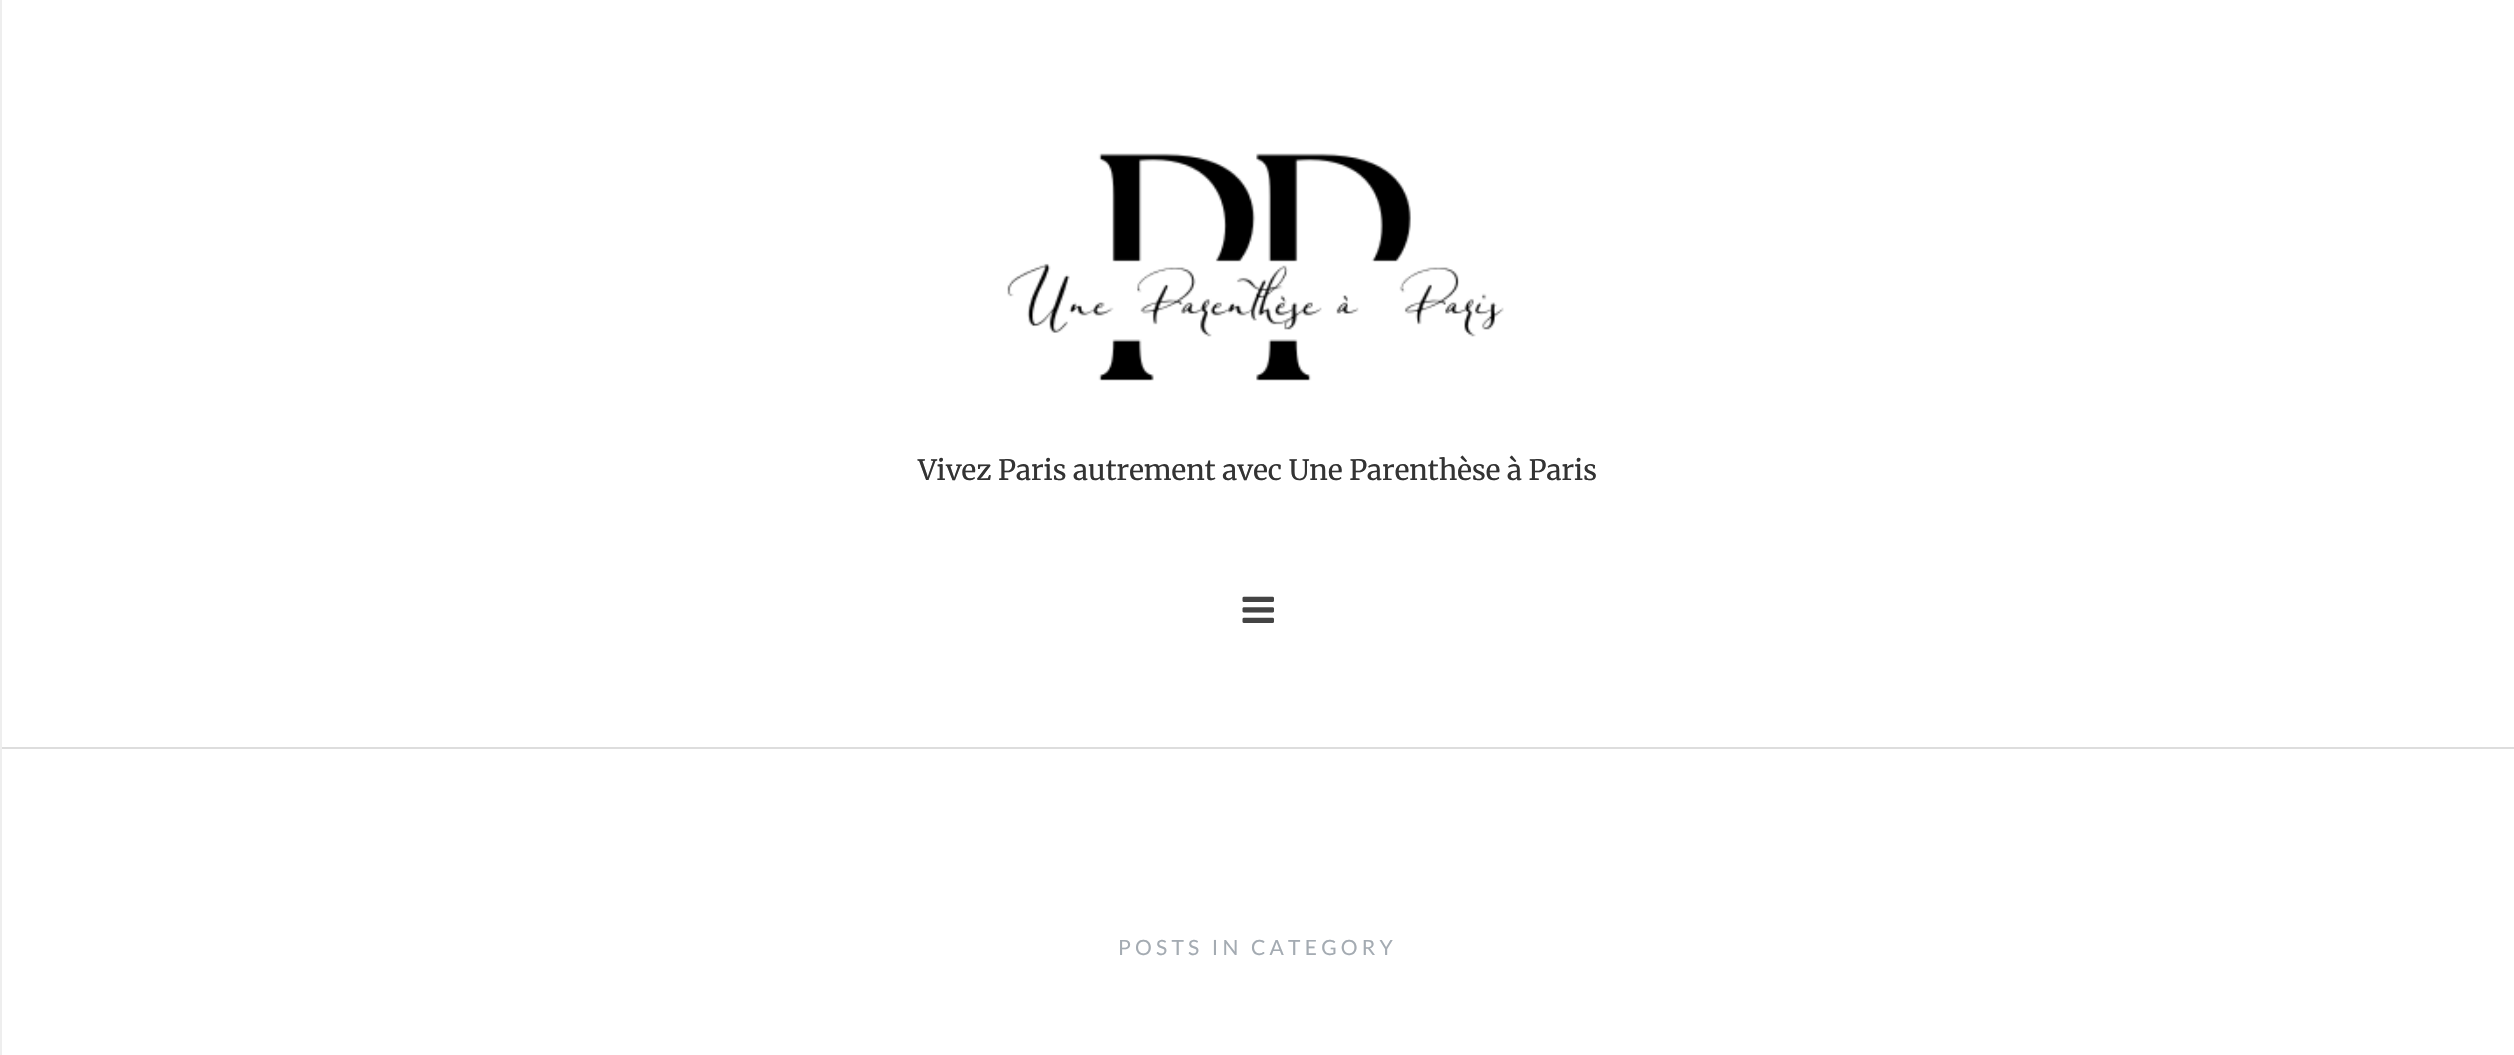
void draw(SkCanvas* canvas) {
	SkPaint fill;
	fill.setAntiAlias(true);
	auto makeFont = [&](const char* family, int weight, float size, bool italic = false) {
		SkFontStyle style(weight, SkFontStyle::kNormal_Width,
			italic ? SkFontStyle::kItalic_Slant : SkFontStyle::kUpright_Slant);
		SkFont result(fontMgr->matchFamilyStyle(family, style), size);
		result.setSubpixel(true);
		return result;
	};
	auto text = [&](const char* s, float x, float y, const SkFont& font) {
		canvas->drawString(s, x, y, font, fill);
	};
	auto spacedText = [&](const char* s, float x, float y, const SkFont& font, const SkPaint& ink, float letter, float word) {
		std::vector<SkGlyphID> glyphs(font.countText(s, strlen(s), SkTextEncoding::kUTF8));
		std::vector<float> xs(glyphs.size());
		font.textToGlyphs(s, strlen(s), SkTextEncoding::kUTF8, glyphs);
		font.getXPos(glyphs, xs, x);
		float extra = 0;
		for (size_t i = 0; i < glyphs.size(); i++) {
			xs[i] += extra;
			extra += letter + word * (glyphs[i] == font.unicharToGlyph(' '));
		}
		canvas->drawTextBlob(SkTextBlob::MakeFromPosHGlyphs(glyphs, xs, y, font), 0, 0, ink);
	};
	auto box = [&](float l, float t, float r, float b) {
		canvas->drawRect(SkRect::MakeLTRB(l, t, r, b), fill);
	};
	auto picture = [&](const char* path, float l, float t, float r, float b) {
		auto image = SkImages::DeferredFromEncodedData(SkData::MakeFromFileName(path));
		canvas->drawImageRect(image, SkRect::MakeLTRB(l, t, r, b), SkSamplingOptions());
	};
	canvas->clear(0xFFFFFFFF);
	fill.setColor(0xFFDDDDDD);
	box(0, 747, 2514, 749);
	fill.setColor(0xFFEEEEEE);
	box(0, 0, 2, 1055);
	picture("image0.png", 1007, 153, 1504, 381);
	picture("image1.png", 1242, 596, 1274, 623);
	auto font1 = makeFont("Merriweather", 400, 28);
	fill.setColor(0xFF333333);
	text("Vivez Paris autrement avec Une Parenthèse à Paris", 918, 480, font1);
	auto font2 = makeFont("Lato", 400, 21);
	fill.setColor(0xFFA4ABB2);
	spacedText("POSTS IN CATEGORY", 1118, 955, font2, fill, 4.25f, 0);
}
